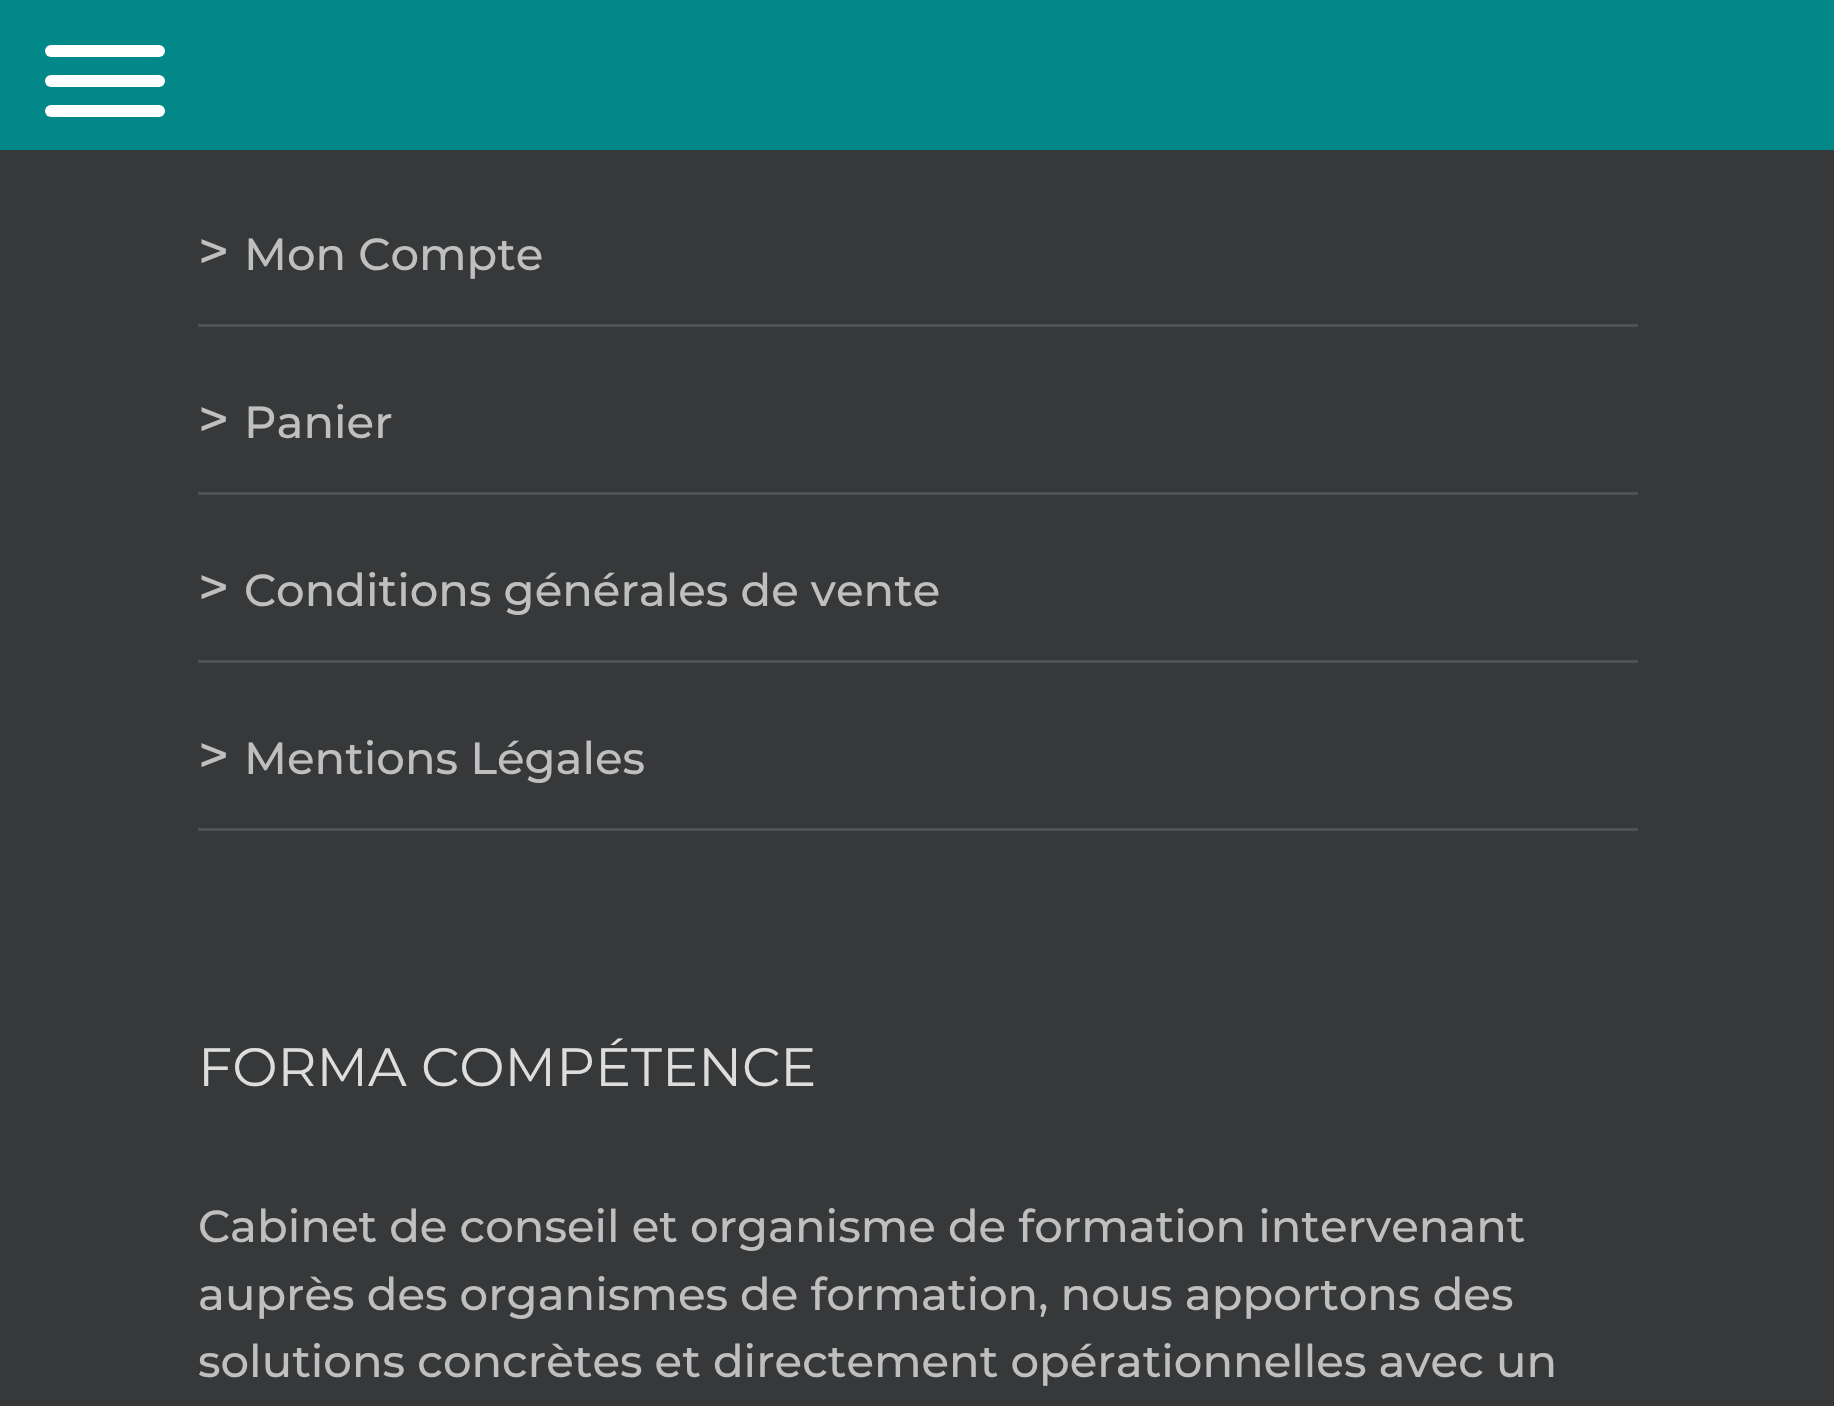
void draw(SkCanvas* canvas) {
	SkPaint fill;
	fill.setAntiAlias(true);
	auto makeFont = [&](const char* family, int weight, float size, bool italic = false) {
		SkFontStyle style(weight, SkFontStyle::kNormal_Width,
			italic ? SkFontStyle::kItalic_Slant : SkFontStyle::kUpright_Slant);
		SkFont result(fontMgr->matchFamilyStyle(family, style), size);
		result.setSubpixel(true);
		return result;
	};
	auto text = [&](const char* s, float x, float y, const SkFont& font) {
		canvas->drawString(s, x, y, font, fill);
	};
	auto box = [&](float l, float t, float r, float b) {
		canvas->drawRect(SkRect::MakeLTRB(l, t, r, b), fill);
	};
	auto roundBox = [&](float l, float t, float r, float b, float radius) {
		canvas->drawRoundRect(SkRect::MakeLTRB(l, t, r, b), radius, radius, fill);
	};
	canvas->clear(0xFF363839);
	fill.setColor(0xFF028889);
	box(0, 0, 1834, 150);
	fill.setColor(0xFFFFFFFF);
	roundBox(45, 75, 165, 87, 6);
	roundBox(45, 45, 165, 57, 6);
	roundBox(45, 105, 165, 117, 6);
	fill.setColor(0xFF505152);
	box(198, 324, 1638, 327);
	box(198, 492, 1638, 495);
	box(198, 660, 1638, 663);
	box(198, 828, 1638, 831);
	auto font1 = makeFont("Montserrat", 500, 54);
	fill.setColor(0xFFBFBFBF);
	text(">", 198, 270, font1);
	auto font2 = makeFont("Montserrat", 500, 45);
	text("Mon Compte", 244, 270, font2);
	text(">", 198, 438, font1);
	text("Panier", 244, 438, font2);
	text(">", 198, 606, font1);
	text("Conditions générales de vente", 244, 606, font2);
	text(">", 198, 774, font1);
	text("Mentions Légales", 244, 774, font2);
	auto font3 = makeFont("Montserrat", 400, 54);
	fill.setColor(0xFFDDDDDD);
	text("FORMA COMPÉTENCE", 198, 1086, font3);
	fill.setColor(0xFFBFBFBF);
	text("Cabinet de conseil et organisme de formation intervenant", 198, 1242, font2);
	text("auprès des organismes de formation, nous apportons des", 198, 1310, font2);
	text("solutions concrètes et directement opérationnelles avec un", 198, 1377, font2);
}
